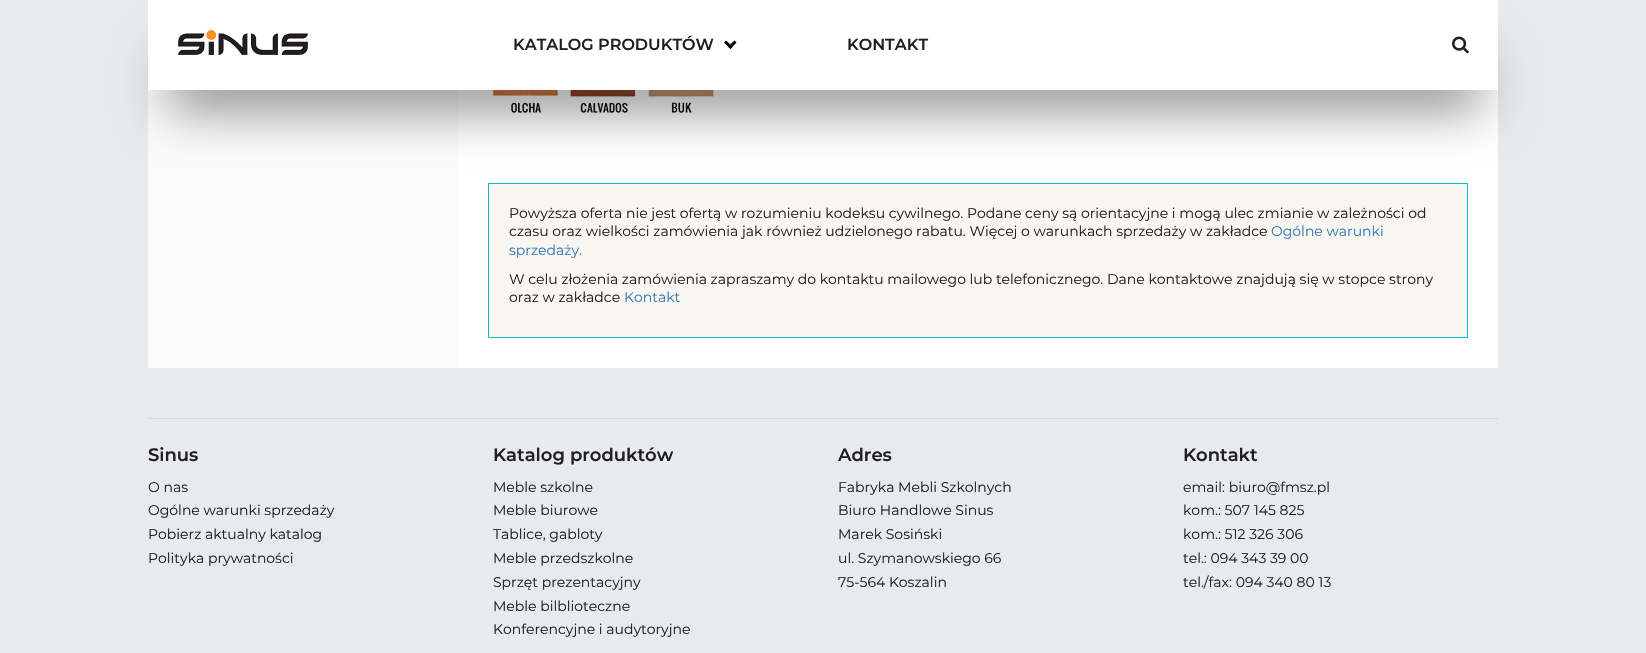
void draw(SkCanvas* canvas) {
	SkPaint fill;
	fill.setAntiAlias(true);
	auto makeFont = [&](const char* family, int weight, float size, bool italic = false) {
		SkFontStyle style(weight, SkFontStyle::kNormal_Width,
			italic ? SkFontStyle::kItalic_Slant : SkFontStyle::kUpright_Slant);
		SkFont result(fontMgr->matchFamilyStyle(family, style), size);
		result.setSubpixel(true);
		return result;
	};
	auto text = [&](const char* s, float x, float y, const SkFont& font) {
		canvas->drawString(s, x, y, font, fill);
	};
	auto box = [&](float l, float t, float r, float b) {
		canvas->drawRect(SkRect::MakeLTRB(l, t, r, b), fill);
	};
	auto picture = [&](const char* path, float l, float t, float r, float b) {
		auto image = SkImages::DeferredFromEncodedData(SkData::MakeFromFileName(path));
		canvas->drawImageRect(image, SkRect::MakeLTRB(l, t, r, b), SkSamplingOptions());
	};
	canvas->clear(0xFFE7EAEE);
	fill.setColor(0xFFFFFFFF);
	box(458, 90, 1498, 368);
	fill.setColor(0xFFFBFBFB);
	box(148, 90, 458, 368);
	picture("image2.png", 490, 90, 716, 113);
	fill.setColor(0xFFF9F6F2);
	canvas->drawRect(SkRect::MakeLTRB(488.5f, 183.5f, 1467.5f, 337.5f), fill);
	fill.setStyle(SkPaint::kStroke_Style);
	fill.setStrokeWidth(1);
	fill.setColor(0xFF00C4C6);
	canvas->drawRect(SkRect::MakeLTRB(488.5f, 183.5f, 1467.5f, 337.5f), fill);
	fill.setStyle(SkPaint::kFill_Style);
	fill.setColor(0x75000000);
	fill.setMaskFilter(SkMaskFilter::MakeBlur(kNormal_SkBlurStyle, 26));
	canvas->drawRect(SkRect::MakeLTRB(169, 57, 1481, 109), fill);
	fill.setMaskFilter(nullptr);
	fill.setColor(0xFFFFFFFF);
	box(148, 0, 1498, 90);
	picture("image0.png", 178, 30, 308, 55);
	fill.setColor(0xFF000000);
	canvas->drawPath(SkPathBuilder().moveTo(734.5f, 40.5f).lineTo(736.5f, 42.5f).lineTo(730.5f, 49).lineTo(728, 46.5f).close().detach(), fill);
	canvas->drawPath(SkPathBuilder().moveTo(726, 40.5f).lineTo(732.5f, 46.5f).lineTo(730.5f, 49).lineTo(724, 42.5f).close().detach(), fill);
	picture("image1.png", 1452, 36, 1469, 54);
	fill.setColor(0xFFDADADA);
	box(148, 418, 1498, 419);
	auto font1 = makeFont("Montserrat", 600, 16);
	fill.setColor(0xFF231F20);
	text("KATALOG PRODUKTÓW", 513, 50, font1);
	text("KONTAKT", 847, 50, font1);
	auto font2 = makeFont("Montserrat", 400, 14);
	text("Powyższa oferta nie jest ofertą w rozumieniu kodeksu cywilnego. Podane ceny są orientacyjne i mogą ulec zmianie w zależności od", 509, 218, font2);
	text("czasu oraz wielkości zamówienia jak również udzielonego rabatu. Więcej o warunkach sprzedaży w zakładce", 509, 236, font2);
	fill.setColor(0xFF337AB7);
	text("Ogólne warunki", 1271, 236, font2);
	text("sprzedaży.", 509, 255, font2);
	fill.setColor(0xFF231F20);
	text("W celu złożenia zamówienia zapraszamy do kontaktu mailowego lub telefonicznego. Dane kontaktowe znajdują się w stopce strony", 509, 284, font2);
	text("oraz w zakładce", 509, 302, font2);
	fill.setColor(0xFF337AB7);
	text("Kontakt", 624, 302, font2);
	auto font3 = makeFont("Montserrat", 600, 18);
	fill.setColor(0xFF231F20);
	text("Sinus", 148, 461, font3);
	text("O nas", 148, 492, font2);
	text("Ogólne warunki sprzedaży", 148, 515, font2);
	text("Pobierz aktualny katalog", 148, 539, font2);
	text("Polityka prywatności", 148, 563, font2);
	text("Katalog produktów", 493, 461, font3);
	text("Meble szkolne", 493, 492, font2);
	text("Meble biurowe", 493, 515, font2);
	text("Tablice, gabloty", 493, 539, font2);
	text("Meble przedszkolne", 493, 563, font2);
	text("Sprzęt prezentacyjny", 493, 587, font2);
	text("Meble bilblioteczne", 493, 611, font2);
	text("Konferencyjne i audytoryjne", 493, 634, font2);
	text("Adres", 838, 461, font3);
	text("Fabryka Mebli Szkolnych", 838, 492, font2);
	text("Biuro Handlowe Sinus", 838, 515, font2);
	text("Marek Sosiński", 838, 539, font2);
	text("ul. Szymanowskiego 66", 838, 563, font2);
	text("75-564 Koszalin", 838, 587, font2);
	text("Kontakt", 1183, 461, font3);
	text("email: biuro@fmsz.pl", 1183, 492, font2);
	text("kom.: 507 145 825", 1183, 515, font2);
	text("kom.: 512 326 306", 1183, 539, font2);
	text("tel.: 094 343 39 00", 1183, 563, font2);
	text("tel./fax: 094 340 80 13", 1183, 587, font2);
}
